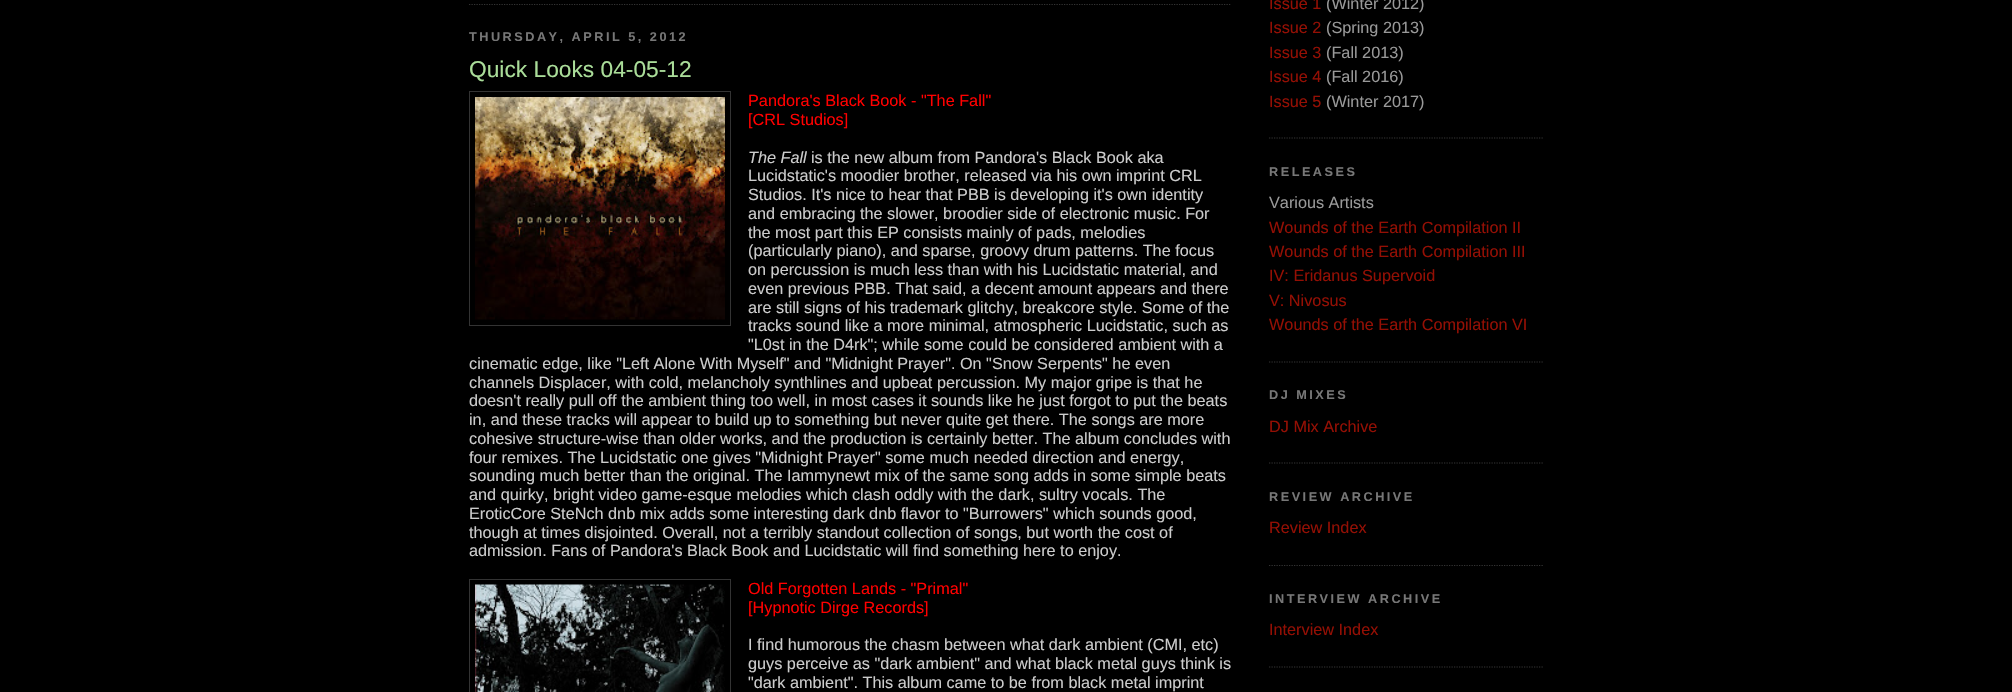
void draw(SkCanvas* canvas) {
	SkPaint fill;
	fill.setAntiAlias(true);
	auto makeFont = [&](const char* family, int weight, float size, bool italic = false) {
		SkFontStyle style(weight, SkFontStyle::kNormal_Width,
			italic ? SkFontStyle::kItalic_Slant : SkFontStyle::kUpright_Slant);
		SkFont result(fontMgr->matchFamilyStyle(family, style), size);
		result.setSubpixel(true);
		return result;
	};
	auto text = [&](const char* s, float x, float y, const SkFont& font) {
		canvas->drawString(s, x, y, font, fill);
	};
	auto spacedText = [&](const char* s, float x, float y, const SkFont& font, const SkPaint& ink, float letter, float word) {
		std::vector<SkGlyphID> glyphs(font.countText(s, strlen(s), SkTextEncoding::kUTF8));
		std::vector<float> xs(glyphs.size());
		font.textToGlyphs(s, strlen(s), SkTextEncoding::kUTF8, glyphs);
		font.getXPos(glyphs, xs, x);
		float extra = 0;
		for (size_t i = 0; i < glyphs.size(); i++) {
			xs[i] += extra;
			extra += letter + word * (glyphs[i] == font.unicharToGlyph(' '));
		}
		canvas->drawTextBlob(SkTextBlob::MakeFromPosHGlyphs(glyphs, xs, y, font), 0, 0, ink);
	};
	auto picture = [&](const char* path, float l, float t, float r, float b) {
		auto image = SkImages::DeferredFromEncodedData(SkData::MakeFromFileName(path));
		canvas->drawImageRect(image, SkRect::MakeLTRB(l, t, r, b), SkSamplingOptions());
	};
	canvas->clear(0xFF000000);
	fill.setStyle(SkPaint::kStroke_Style);
	fill.setStrokeWidth(1.2f);
	fill.setColor(0xFF333333);
	fill.setPathEffect(SkDashPathEffect::Make({{1.25f, 1.25f}}, 0));
	canvas->drawPath(SkPathBuilder().moveTo(469, 4.5f).lineTo(1231, 4.5f).detach(), fill);
	fill.setPathEffect(nullptr);
	fill.setStrokeWidth(1);
	canvas->drawRect(SkRect::MakeLTRB(469.5f, 91.5f, 730.5f, 325.5f), fill);
	picture("image0.png", 475, 97, 725, 320);
	canvas->drawRect(SkRect::MakeLTRB(469.5f, 579.5f, 730.5f, 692.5f), fill);
	picture("image1.png", 475, 584, 725, 692);
	fill.setStrokeWidth(1.2f);
	fill.setPathEffect(SkDashPathEffect::Make({{1.25f, 1.25f}}, 0));
	canvas->drawPath(SkPathBuilder().moveTo(1269, 138).lineTo(1544, 138).detach(), fill);
	fill.setPathEffect(nullptr);
	fill.setPathEffect(SkDashPathEffect::Make({{1.25f, 1.25f}}, 0));
	canvas->drawPath(SkPathBuilder().moveTo(1269, 362).lineTo(1544, 362).detach(), fill);
	fill.setPathEffect(nullptr);
	fill.setPathEffect(SkDashPathEffect::Make({{1.25f, 1.25f}}, 0));
	canvas->drawPath(SkPathBuilder().moveTo(1269, 463).lineTo(1544, 463).detach(), fill);
	fill.setPathEffect(nullptr);
	fill.setPathEffect(SkDashPathEffect::Make({{1.25f, 1.25f}}, 0));
	canvas->drawPath(SkPathBuilder().moveTo(1269, 565.5f).lineTo(1544, 565.5f).detach(), fill);
	fill.setPathEffect(nullptr);
	fill.setPathEffect(SkDashPathEffect::Make({{1.25f, 1.25f}}, 0));
	canvas->drawPath(SkPathBuilder().moveTo(1269, 667).lineTo(1544, 667).detach(), fill);
	fill.setPathEffect(nullptr);
	auto font1 = makeFont("Liberation Sans", 700, 12.7f);
	fill.setStyle(SkPaint::kFill_Style);
	fill.setColor(0xFF777777);
	spacedText("THURSDAY, APRIL 5, 2012", 469, 41, font1, fill, 2.5f, 0);
	auto font2 = makeFont("Liberation Sans", 400, 22.75f);
	fill.setColor(0xFFAADD99);
	text("Quick Looks 04-05-12", 469, 77, font2);
	auto font3 = makeFont("Liberation Sans", 400, 16.25f);
	fill.setColor(0xFFFF0000);
	text("Pandora's Black Book - \"The Fall\"", 748, 106, font3);
	text("[CRL Studios]", 748, 125, font3);
	auto font4 = makeFont("Liberation Sans", 400, 16.25f, true);
	fill.setColor(0xFFCCCCCC);
	text("The Fall", 748, 163, font4);
	text("is the new album from Pandora's Black Book aka", 811, 163, font3);
	text("Lucidstatic's moodier brother, released via his own imprint CRL", 748, 181, font3);
	text("Studios. It's nice to hear that PBB is developing it's own identity", 748, 200, font3);
	text("and embracing the slower, broodier side of electronic music. For", 748, 219, font3);
	text("the most part this EP consists mainly of pads, melodies", 748, 238, font3);
	text("(particularly piano), and sparse, groovy drum patterns. The focus", 748, 256, font3);
	text("on percussion is much less than with his Lucidstatic material, and", 748, 275, font3);
	text("even previous PBB. That said, a decent amount appears and there", 748, 294, font3);
	text("are still signs of his trademark glitchy, breakcore style. Some of the", 748, 313, font3);
	text("tracks sound like a more minimal, atmospheric Lucidstatic, such as", 748, 331, font3);
	text("\"L0st in the D4rk\"; while some could be considered ambient with a", 748, 350, font3);
	text("cinematic edge, like \"Left Alone With Myself\" and \"Midnight Prayer\". On \"Snow Serpents\" he even", 469, 369, font3);
	text("channels Displacer, with cold, melancholy synthlines and upbeat percussion. My major gripe is that he", 469, 388, font3);
	text("doesn't really pull off the ambient thing too well, in most cases it sounds like he just forgot to put the beats", 469, 406, font3);
	text("in, and these tracks will appear to build up to something but never quite get there. The songs are more", 469, 425, font3);
	text("cohesive structure-wise than older works, and the production is certainly better. The album concludes with", 469, 444, font3);
	text("four remixes. The Lucidstatic one gives \"Midnight Prayer\" some much needed direction and energy,", 469, 463, font3);
	text("sounding much better than the original. The Iammynewt mix of the same song adds in some simple beats", 469, 481, font3);
	text("and quirky, bright video game-esque melodies which clash oddly with the dark, sultry vocals. The", 469, 500, font3);
	text("EroticCore SteNch dnb mix adds some interesting dark dnb flavor to \"Burrowers\" which sounds good,", 469, 519, font3);
	text("though at times disjointed. Overall, not a terribly standout collection of songs, but worth the cost of", 469, 538, font3);
	text("admission. Fans of Pandora's Black Book and Lucidstatic will find something here to enjoy.", 469, 556, font3);
	fill.setColor(0xFFFF0000);
	text("Old Forgotten Lands - \"Primal\"", 748, 594, font3);
	text("[Hypnotic Dirge Records]", 748, 613, font3);
	fill.setColor(0xFFCCCCCC);
	text("I find humorous the chasm between what dark ambient (CMI, etc)", 748, 650, font3);
	text("guys perceive as \"dark ambient\" and what black metal guys think is", 748, 669, font3);
	text("\"dark ambient\". This album came to be from black metal imprint", 748, 688, font3);
	fill.setColor(0xFF940F04);
	text("Issue 1", 1269, 9, font3);
	fill.setColor(0xFF999999);
	text("(Winter 2012)", 1326, 9, font3);
	fill.setColor(0xFF940F04);
	text("Issue 2", 1269, 33, font3);
	fill.setColor(0xFF999999);
	text("(Spring 2013)", 1326, 33, font3);
	fill.setColor(0xFF940F04);
	text("Issue 3", 1269, 58, font3);
	fill.setColor(0xFF999999);
	text("(Fall 2013)", 1326, 58, font3);
	fill.setColor(0xFF940F04);
	text("Issue 4", 1269, 82, font3);
	fill.setColor(0xFF999999);
	text("(Fall 2016)", 1326, 82, font3);
	fill.setColor(0xFF940F04);
	text("Issue 5", 1269, 107, font3);
	fill.setColor(0xFF999999);
	text("(Winter 2017)", 1326, 107, font3);
	fill.setColor(0xFF777777);
	spacedText("RELEASES", 1269, 176, font1, fill, 2.5f, 0);
	fill.setColor(0xFF999999);
	text("Various Artists", 1269, 208, font3);
	fill.setColor(0xFF940F04);
	text("Wounds of the Earth Compilation II", 1269, 233, font3);
	text("Wounds of the Earth Compilation III", 1269, 257, font3);
	text("IV: Eridanus Supervoid", 1269, 281, font3);
	text("V: Nivosus", 1269, 306, font3);
	text("Wounds of the Earth Compilation VI", 1269, 330, font3);
	fill.setColor(0xFF777777);
	spacedText("DJ MIXES", 1269, 399, font1, fill, 2.5f, 0);
	fill.setColor(0xFF940F04);
	text("DJ Mix Archive", 1269, 432, font3);
	fill.setColor(0xFF777777);
	spacedText("REVIEW ARCHIVE", 1269, 501, font1, fill, 2.5f, 0);
	fill.setColor(0xFF940F04);
	text("Review Index", 1269, 533, font3);
	fill.setColor(0xFF777777);
	spacedText("INTERVIEW ARCHIVE", 1269, 603, font1, fill, 2.5f, 0);
	fill.setColor(0xFF940F04);
	text("Interview Index", 1269, 635, font3);
}
